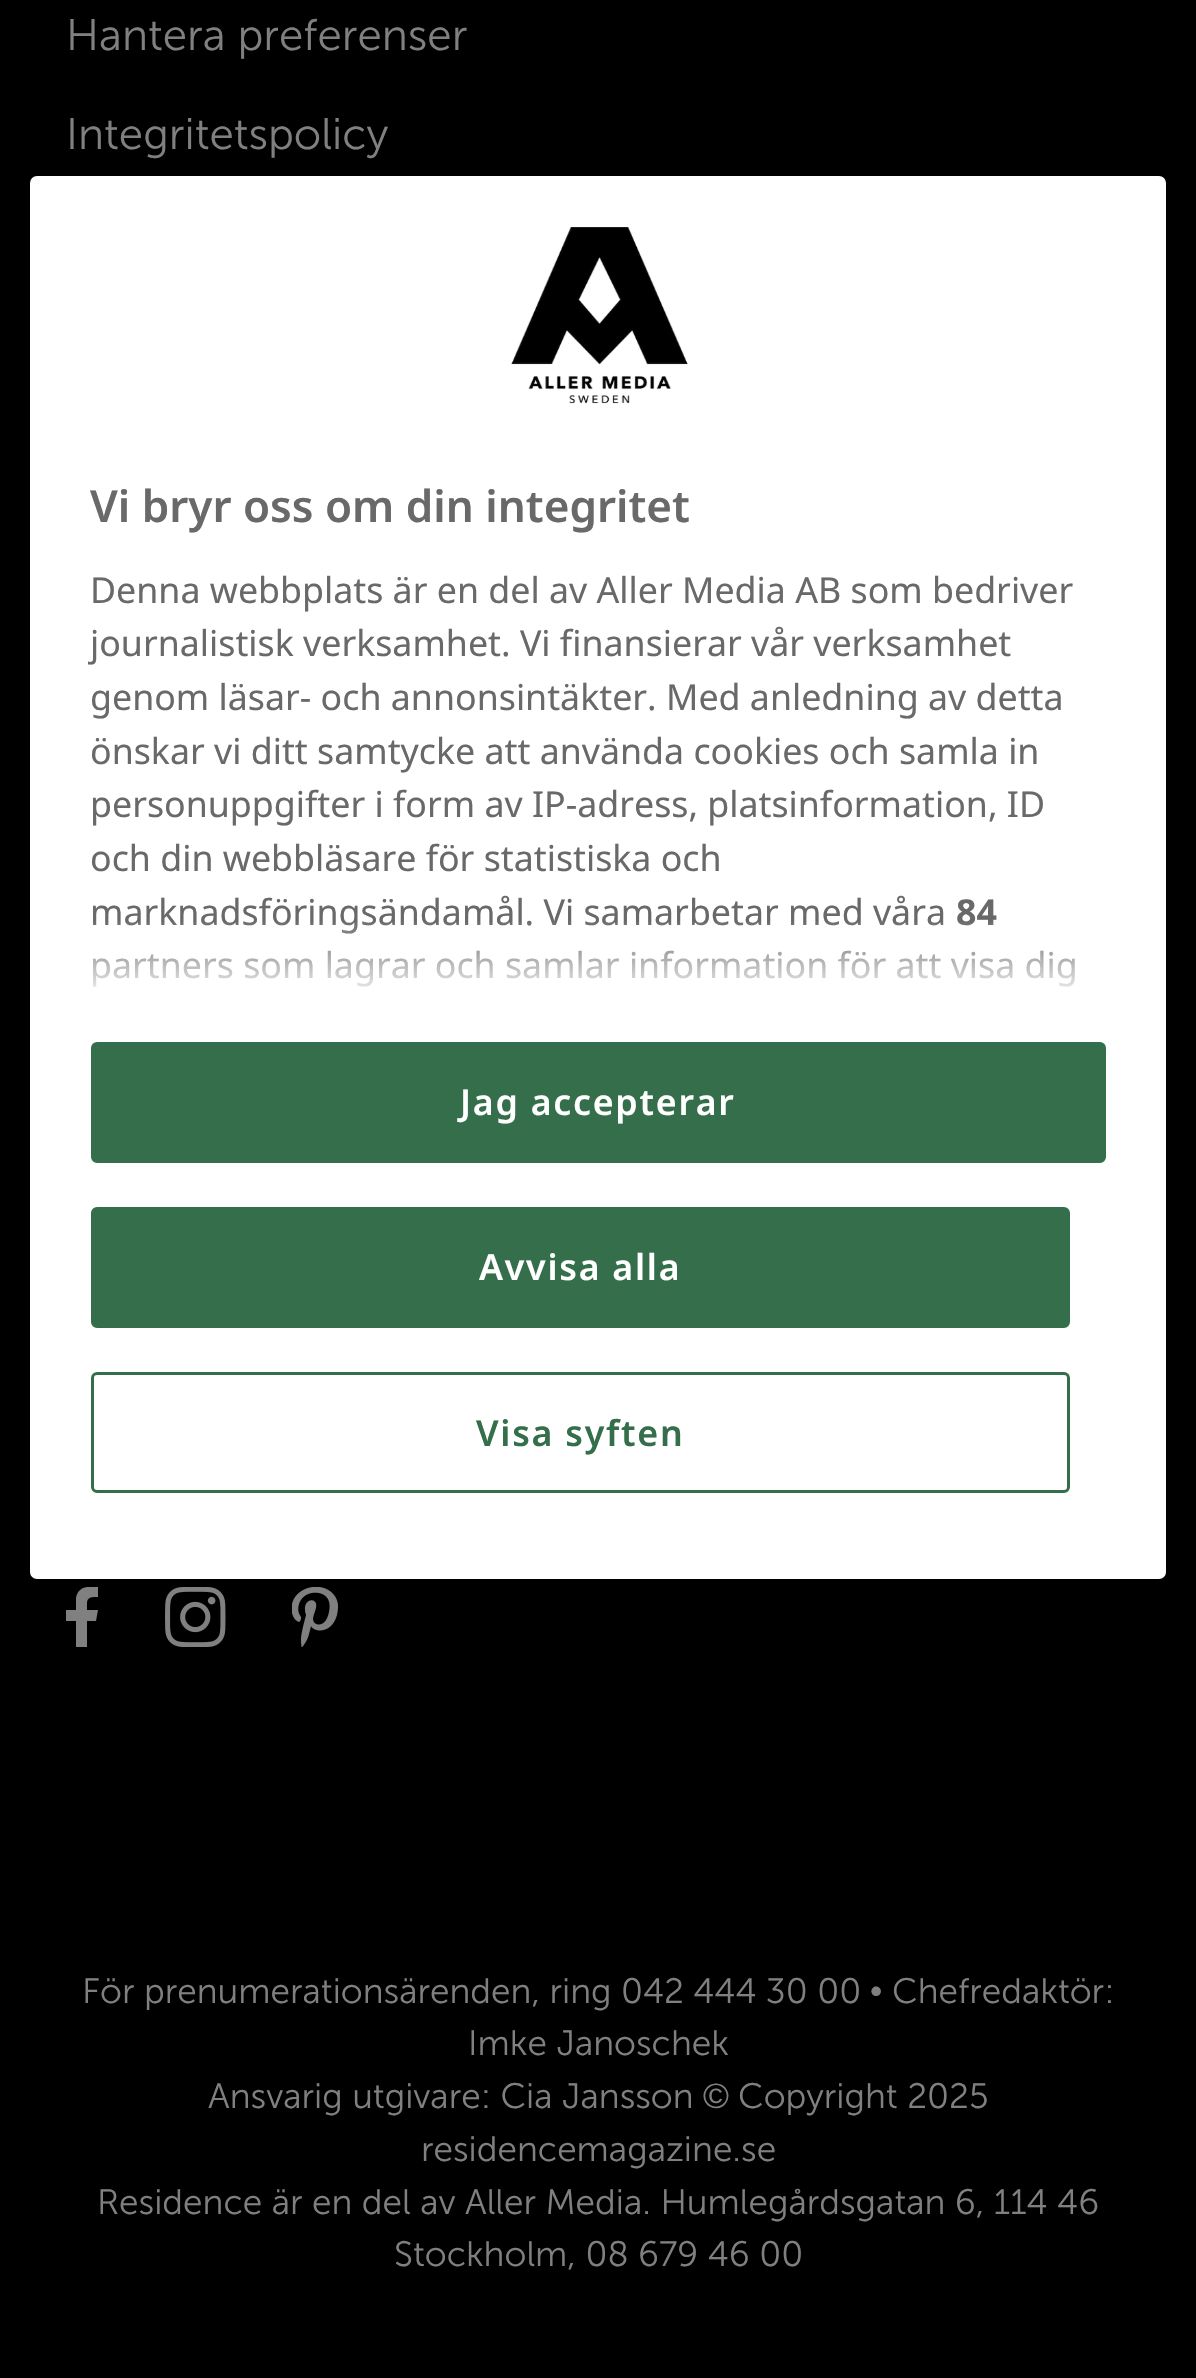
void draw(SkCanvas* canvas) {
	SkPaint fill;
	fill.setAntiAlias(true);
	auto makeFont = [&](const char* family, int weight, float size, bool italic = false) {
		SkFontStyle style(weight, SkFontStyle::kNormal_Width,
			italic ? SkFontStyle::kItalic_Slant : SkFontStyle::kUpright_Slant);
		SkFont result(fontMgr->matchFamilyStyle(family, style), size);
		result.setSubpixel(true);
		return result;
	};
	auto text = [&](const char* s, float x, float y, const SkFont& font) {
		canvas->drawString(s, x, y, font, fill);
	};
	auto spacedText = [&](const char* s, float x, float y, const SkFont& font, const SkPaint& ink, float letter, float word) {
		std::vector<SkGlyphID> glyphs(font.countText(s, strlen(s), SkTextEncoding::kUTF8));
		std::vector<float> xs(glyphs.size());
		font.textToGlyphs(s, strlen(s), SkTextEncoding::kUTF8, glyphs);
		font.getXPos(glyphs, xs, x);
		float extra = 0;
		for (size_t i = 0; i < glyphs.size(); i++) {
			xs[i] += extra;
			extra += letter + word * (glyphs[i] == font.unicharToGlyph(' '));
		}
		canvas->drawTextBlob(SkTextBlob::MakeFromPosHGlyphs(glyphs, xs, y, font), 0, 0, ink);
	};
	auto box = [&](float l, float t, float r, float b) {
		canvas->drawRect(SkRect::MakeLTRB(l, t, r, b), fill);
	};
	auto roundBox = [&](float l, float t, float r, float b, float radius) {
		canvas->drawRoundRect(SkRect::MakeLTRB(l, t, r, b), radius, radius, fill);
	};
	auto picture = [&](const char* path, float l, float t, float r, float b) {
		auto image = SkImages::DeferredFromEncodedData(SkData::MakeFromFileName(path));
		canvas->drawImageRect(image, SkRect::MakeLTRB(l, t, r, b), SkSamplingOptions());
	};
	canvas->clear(0xFF000000);
	canvas->save();
	canvas->clipRect(SkRect::MakeLTRB(66, 1587, 99, 1647));
	fill.setColor(0xFF808080);
	canvas->drawPath(SkPathBuilder().moveTo(96, 1621).lineTo(98, 1610).lineTo(87, 1610).cubicTo(87, 1599, 86, 1597, 98, 1597).lineTo(98, 1587).cubicTo(89, 1586, 78, 1586, 76, 1598).lineTo(76, 1610).lineTo(66, 1610).lineTo(66, 1621).lineTo(76, 1621).lineTo(76, 1647).lineTo(87, 1647).lineTo(87, 1621).close().detach(), fill);
	canvas->restore();
	picture("image0.png", 165, 1587, 226, 1647);
	picture("image1.png", 292, 1587, 338, 1647);
	fill.setColor(0xFFFFFFFF);
	roundBox(30, 176, 1166, 1579, 7);
	picture("image2.png", 511, 227, 688, 404);
	fill.setColor(0xFF346E4A);
	canvas->drawRoundRect(SkRect::MakeLTRB(92.5f, 1043.5f, 1104.5f, 1161.5f), 4.5f, 4.5f, fill);
	fill.setStyle(SkPaint::kStroke_Style);
	fill.setStrokeWidth(3);
	canvas->drawRoundRect(SkRect::MakeLTRB(92.5f, 1043.5f, 1104.5f, 1161.5f), 4.5f, 4.5f, fill);
	fill.setStyle(SkPaint::kFill_Style);
	canvas->drawRoundRect(SkRect::MakeLTRB(92.5f, 1208.5f, 1068.5f, 1326.5f), 4.5f, 4.5f, fill);
	fill.setStyle(SkPaint::kStroke_Style);
	canvas->drawRoundRect(SkRect::MakeLTRB(92.5f, 1208.5f, 1068.5f, 1326.5f), 4.5f, 4.5f, fill);
	canvas->drawRoundRect(SkRect::MakeLTRB(92.5f, 1373.5f, 1068.5f, 1491.5f), 4.5f, 4.5f, fill);
	auto font1 = makeFont("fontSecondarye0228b", 300, 44);
	fill.setStyle(SkPaint::kFill_Style);
	fill.setColor(0xFF808080);
	text("Hantera preferenser", 66, 50, font1);
	text("Integritetspolicy", 66, 149, font1);
	auto font2 = makeFont("fontSecondarye0228b", 300, 35.2f);
	text("För prenumerationsärenden, ring 042 444 30 00", 82, 2003, font2);
	auto font3 = makeFont("Liberation Sans", 400, 35.2f);
	text("•", 870, 2003, font3);
	text("Chefredaktör:", 892, 2003, font2);
	text("Imke Janoschek", 468, 2055, font2);
	text("Ansvarig utgivare: Cia Jansson", 208, 2108, font2);
	text("©", 703, 2108, font3);
	text("Copyright 2025", 738, 2108, font2);
	text("residencemagazine.se", 421, 2161, font2);
	text("Residence är en del av Aller Media. Humlegårdsgatan 6, 114 46", 97, 2214, font2);
	text("Stockholm, 08 679 46 00", 394, 2266, font2);
	auto font4 = makeFont("Noto Sans", 600, 44);
	fill.setColor(0xFF696969);
	text("Vi bryr oss om din integritet", 90, 522, font4);
	auto font5 = makeFont("Noto Sans", 400, 35.75f);
	text("Denna webbplats är en del av Aller Media AB som bedriver", 90, 603, font5);
	text("journalistisk verksamhet. Vi finansierar vår verksamhet", 90, 656, font5);
	text("genom läsar- och annonsintäkter. Med anledning av detta", 90, 710, font5);
	text("önskar vi ditt samtycke att använda cookies och samla in", 90, 764, font5);
	text("personuppgifter i form av IP-adress, platsinformation, ID", 90, 817, font5);
	text("och din webbläsare för statistiska och", 90, 871, font5);
	text("marknadsföringsändamål. Vi samarbetar med våra", 90, 925, font5);
	auto font6 = makeFont("Noto Sans", 700, 35.75f);
	text("84", 956, 925, font6);
	text("partners som lagrar och samlar information för att visa dig", 90, 978, font5);
	{
		const SkColor colors[] = {0x00FFFFFF, 0xFFFFFFFF};
		const float stops[] = {0, 1};
		const SkPoint ends[] = {{631, 920}, {631, 1003}};
		fill.setShader(SkGradientShader::MakeLinear(ends, colors, stops, 2, SkTileMode::kClamp));
		fill.setAlpha(255);
	}
	box(93, 922, 1076, 987);
	auto font7 = makeFont("Noto Sans", 600, 35.75f);
	fill.setShader(nullptr);
	fill.setColor(0xFFFFFFFF);
	spacedText("Jag accepterar", 460, 1115, font7, fill, 1.75f, 0);
	spacedText("Avvisa alla", 479, 1280, font7, fill, 1.75f, 0);
	fill.setColor(0xFF346E4A);
	spacedText("Visa syften", 476, 1446, font7, fill, 1.75f, 0);
}
